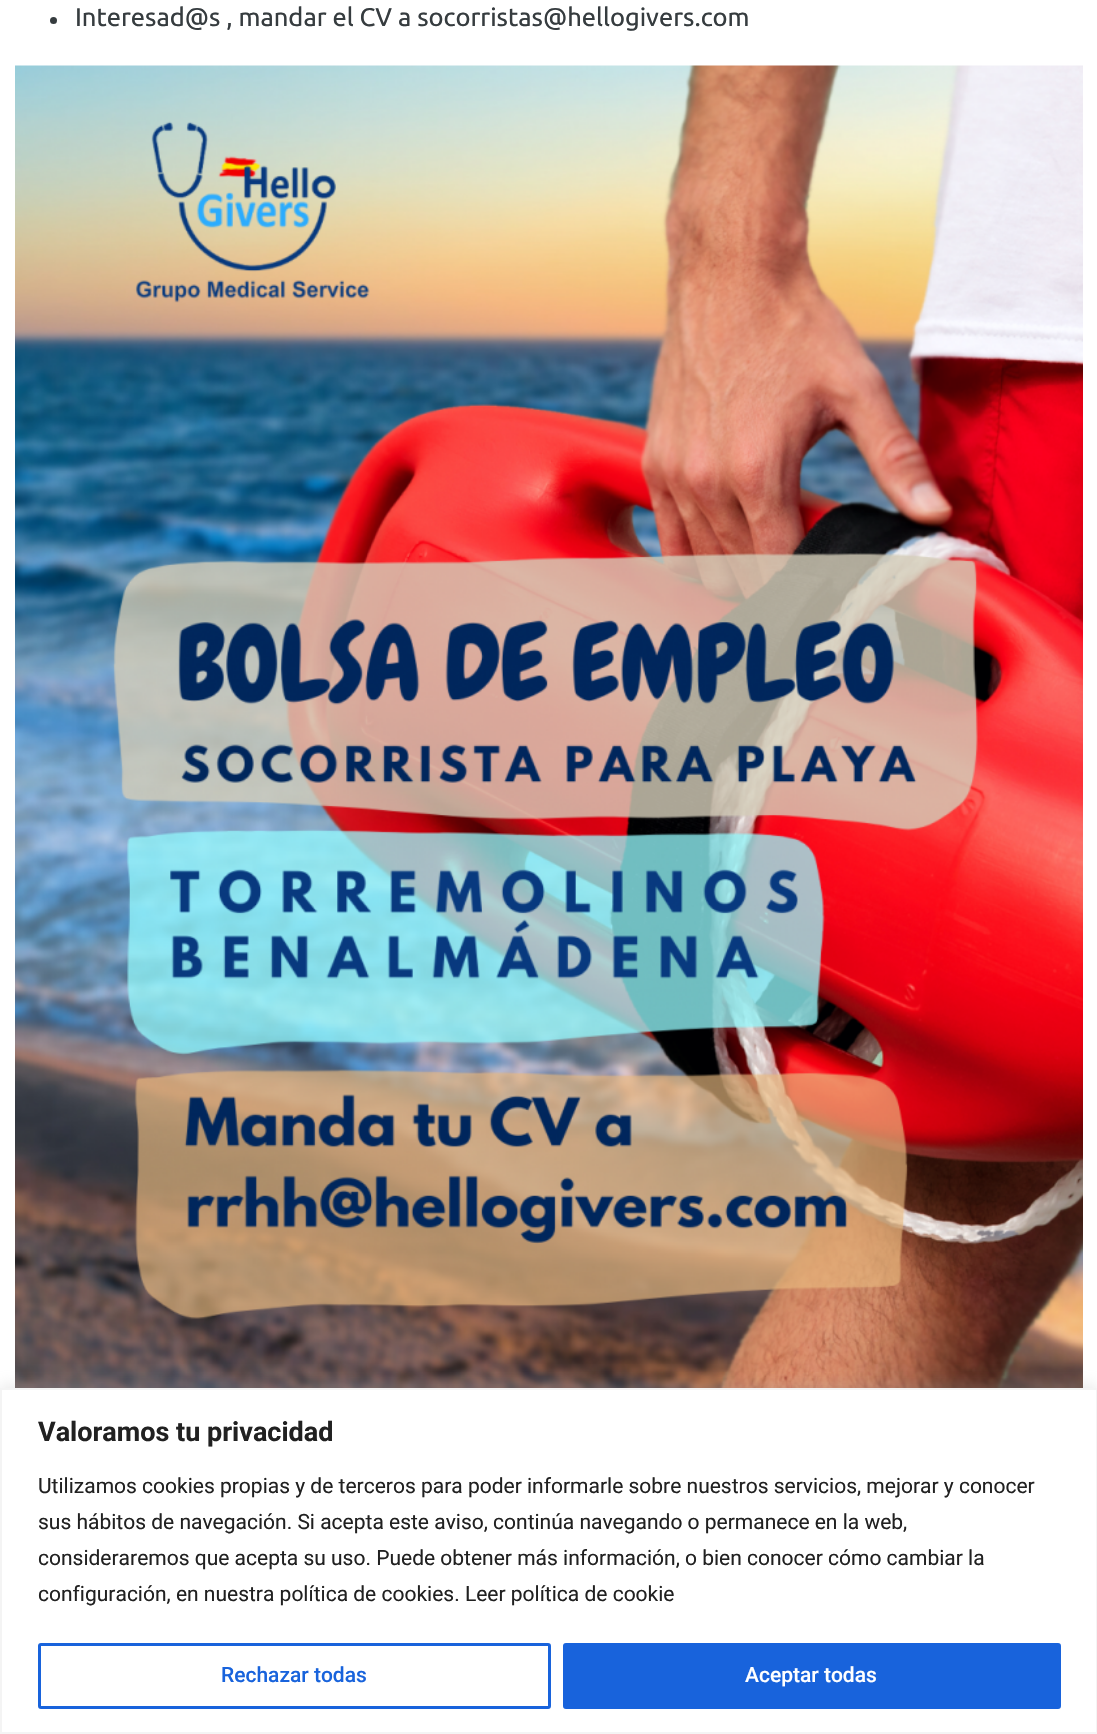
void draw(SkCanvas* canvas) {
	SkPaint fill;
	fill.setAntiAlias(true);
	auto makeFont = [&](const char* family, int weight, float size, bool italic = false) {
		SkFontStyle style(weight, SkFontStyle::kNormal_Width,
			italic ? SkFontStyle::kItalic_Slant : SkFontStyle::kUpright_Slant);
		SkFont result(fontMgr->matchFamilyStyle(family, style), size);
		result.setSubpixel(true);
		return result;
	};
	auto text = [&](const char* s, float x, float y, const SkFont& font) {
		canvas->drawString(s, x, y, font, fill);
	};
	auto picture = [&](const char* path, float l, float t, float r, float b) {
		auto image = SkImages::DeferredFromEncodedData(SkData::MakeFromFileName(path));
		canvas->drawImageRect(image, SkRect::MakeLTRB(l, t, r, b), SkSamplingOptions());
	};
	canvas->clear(0xFFFFFFFF);
	fill.setColor(0xFF363C3F);
	canvas->drawCircle(53.5f, 20.5f, 3.5f, fill);
	picture("image0.png", 15, 65, 1083, 1388);
	fill.setColor(0x4DACABAB);
	fill.setMaskFilter(SkMaskFilter::MakeBlur(kNormal_SkBlurStyle, 7.5f));
	canvas->drawRect(SkRect::MakeLTRB(0, 1386, 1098, 1733), fill);
	fill.setMaskFilter(nullptr);
	fill.setColor(0xFFFFFFFF);
	canvas->drawRect(SkRect::MakeLTRB(1, 1389, 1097, 1733), fill);
	fill.setStyle(SkPaint::kStroke_Style);
	fill.setStrokeWidth(2);
	fill.setColor(0xFFF4F4F4);
	canvas->drawRect(SkRect::MakeLTRB(1, 1389, 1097, 1733), fill);
	fill.setStrokeWidth(3);
	fill.setColor(0xFF1863DC);
	canvas->drawRoundRect(SkRect::MakeLTRB(39.5f, 1644.5f, 549.5f, 1707.5f), 1.5f, 1.5f, fill);
	fill.setStyle(SkPaint::kFill_Style);
	canvas->drawRoundRect(SkRect::MakeLTRB(564.5f, 1644.5f, 1059.5f, 1707.5f), 1.5f, 1.5f, fill);
	fill.setStyle(SkPaint::kStroke_Style);
	canvas->drawRoundRect(SkRect::MakeLTRB(564.5f, 1644.5f, 1059.5f, 1707.5f), 1.5f, 1.5f, fill);
	auto font1 = makeFont("Ubuntu", 400, 25.5f);
	fill.setStyle(SkPaint::kFill_Style);
	fill.setColor(0xFF363C3F);
	text("Interesad@s , mandar el CV a socorristas@hellogivers.com", 75, 26, font1);
	auto font2 = makeFont("Roboto", 700, 27);
	fill.setColor(0xFF212121);
	text("Valoramos tu privacidad", 38, 1441, font2);
	auto font3 = makeFont("Roboto", 400, 21);
	text("Utilizamos cookies propias y de terceros para poder informarle sobre nuestros servicios, mejorar y conocer", 38, 1493, font3);
	text("sus hábitos de navegación. Si acepta este aviso, continúa navegando o permanece en la web,", 38, 1529, font3);
	text("consideraremos que acepta su uso. Puede obtener más información, o bien conocer cómo cambiar la", 38, 1565, font3);
	text("configuración, en nuestra política de cookies. Leer política de cookie", 38, 1601, font3);
	auto font4 = makeFont("Roboto", 500, 21);
	fill.setColor(0xFF1863DC);
	text("Rechazar todas", 221, 1682, font4);
	fill.setColor(0xFFFFFFFF);
	text("Aceptar todas", 745, 1682, font4);
}
